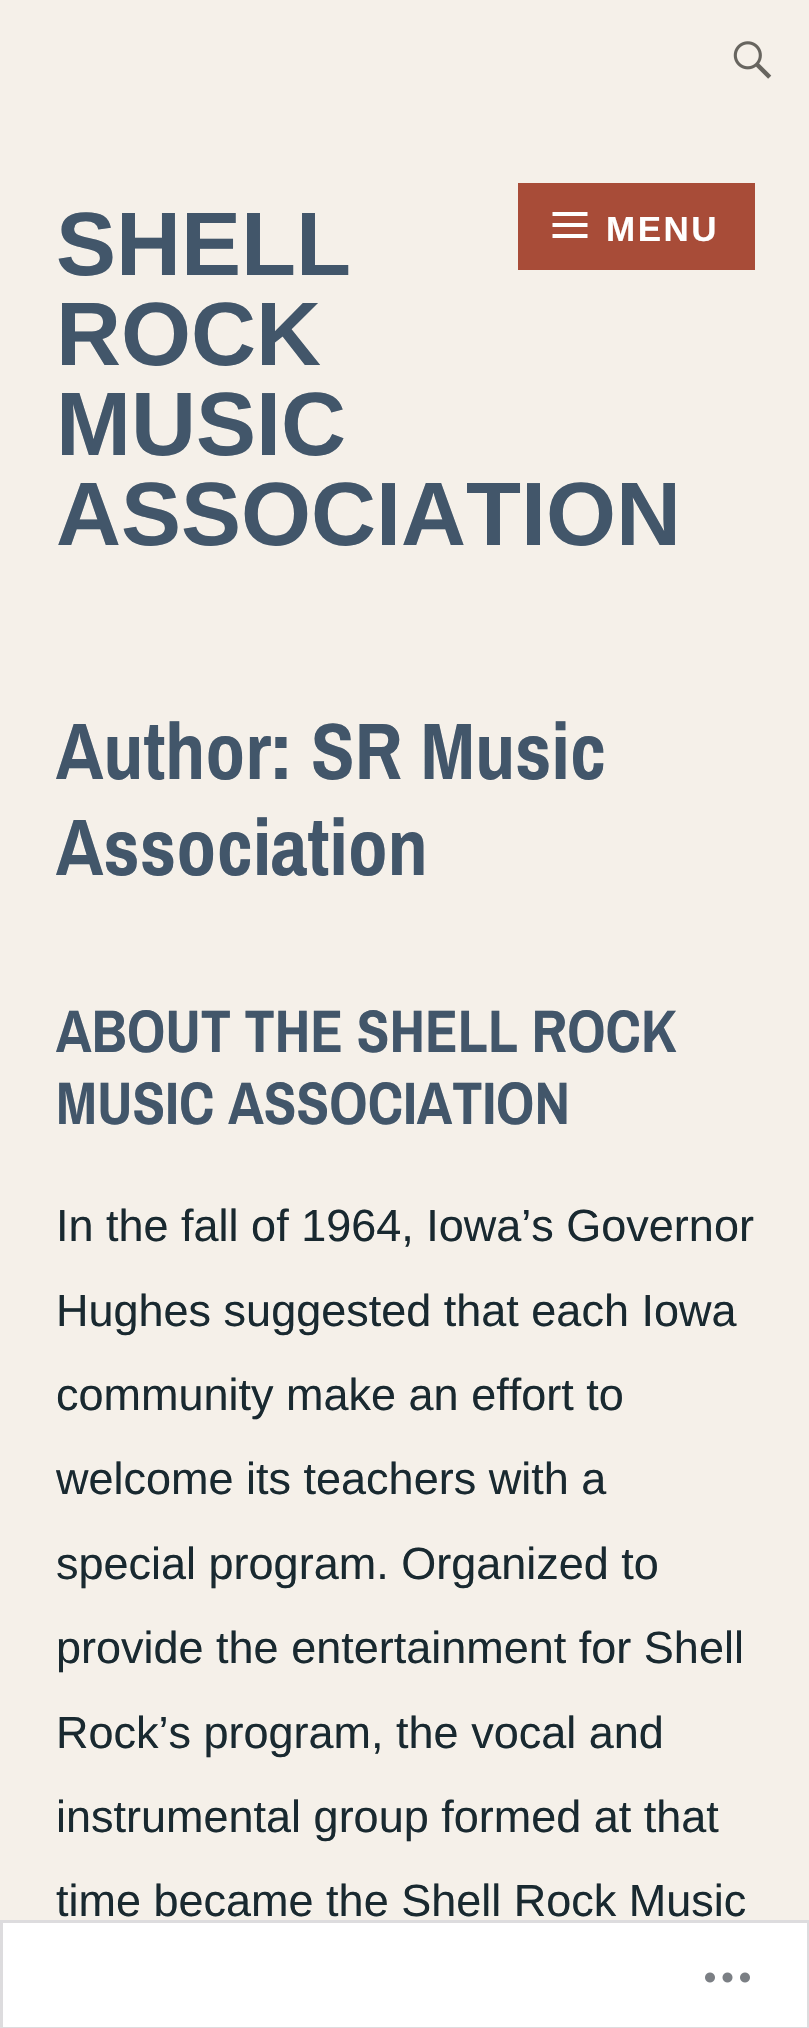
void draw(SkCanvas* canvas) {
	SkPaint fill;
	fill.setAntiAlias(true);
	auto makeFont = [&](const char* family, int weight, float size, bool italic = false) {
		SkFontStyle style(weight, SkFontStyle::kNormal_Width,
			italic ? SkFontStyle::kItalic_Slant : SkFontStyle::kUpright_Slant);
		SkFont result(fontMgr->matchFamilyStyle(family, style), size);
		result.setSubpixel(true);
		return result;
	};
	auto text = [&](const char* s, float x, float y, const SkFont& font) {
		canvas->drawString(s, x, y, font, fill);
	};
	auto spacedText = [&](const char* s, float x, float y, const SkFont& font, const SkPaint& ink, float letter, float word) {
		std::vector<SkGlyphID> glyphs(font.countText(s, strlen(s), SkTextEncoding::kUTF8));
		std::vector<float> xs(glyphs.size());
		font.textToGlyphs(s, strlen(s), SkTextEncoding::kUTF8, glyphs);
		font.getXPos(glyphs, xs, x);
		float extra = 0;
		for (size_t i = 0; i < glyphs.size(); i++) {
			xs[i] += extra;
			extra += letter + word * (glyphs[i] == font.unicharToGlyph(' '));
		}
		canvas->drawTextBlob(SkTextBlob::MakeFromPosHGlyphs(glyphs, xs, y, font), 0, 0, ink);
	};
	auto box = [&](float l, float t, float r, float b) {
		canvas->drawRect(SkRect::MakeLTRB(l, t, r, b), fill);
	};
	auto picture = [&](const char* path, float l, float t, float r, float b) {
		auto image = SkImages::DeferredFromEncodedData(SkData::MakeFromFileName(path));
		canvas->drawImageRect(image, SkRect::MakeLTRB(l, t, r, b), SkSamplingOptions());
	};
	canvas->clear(0xFFF5F0E9);
	picture("image0.png", 733, 41, 772, 79);
	fill.setColor(0xFFA84C38);
	box(518, 183, 755, 270);
	fill.setColor(0xFFFFFFFF);
	canvas->drawPath(SkPathBuilder().moveTo(552.5f, 238).lineTo(552.5f, 234).lineTo(587.5f, 234).lineTo(587.5f, 238).close().moveTo(552.5f, 212).lineTo(587.5f, 212).lineTo(587.5f, 216).lineTo(552.5f, 216).close().moveTo(552.5f, 227).lineTo(552.5f, 223).lineTo(587.5f, 223).lineTo(587.5f, 227).close().detach(), fill);
	canvas->drawRect(SkRect::MakeLTRB(1.5f, 1921.5f, 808.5f, 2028.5f), fill);
	fill.setStyle(SkPaint::kStroke_Style);
	fill.setStrokeWidth(3);
	fill.setColor(0xFFDDDCDE);
	canvas->drawRect(SkRect::MakeLTRB(1.5f, 1921.5f, 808.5f, 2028.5f), fill);
	picture("image1.png", 705, 1972, 750, 1983);
	auto font1 = makeFont("Liberation Sans", 700, 90);
	fill.setStyle(SkPaint::kFill_Style);
	fill.setColor(0xFF42566A);
	text("SHELL", 56, 275, font1);
	text("ROCK", 56, 365, font1);
	text("MUSIC", 56, 455, font1);
	text("ASSOCIATION", 56, 545, font1);
	auto font2 = makeFont("Liberation Sans", 700, 35);
	fill.setColor(0xFFFFFFFF);
	spacedText("MENU", 606, 241, font2, fill, 2.5f, 0);
	auto font3 = makeFont("Archivo Narrow", 700, 80);
	fill.setColor(0xFF42566A);
	text("Author: SR Music", 56, 779, font3);
	text("Association", 56, 875, font3);
	auto font4 = makeFont("Archivo Narrow", 700, 60);
	text("ABOUT THE SHELL ROCK", 56, 1052, font4);
	text("MUSIC ASSOCIATION", 56, 1124, font4);
	auto font5 = makeFont("Liberation Sans", 400, 45);
	fill.setColor(0xFF192930);
	text("In the fall of 1964, Iowa’s Governor", 56, 1241, font5);
	text("Hughes suggested that each Iowa", 56, 1326, font5);
	text("community make an effort to", 56, 1410, font5);
	text("welcome its teachers with a", 56, 1494, font5);
	text("special program. Organized to", 56, 1579, font5);
	text("provide the entertainment for Shell", 56, 1663, font5);
	text("Rock’s program, the vocal and", 56, 1748, font5);
	text("instrumental group formed at that", 56, 1832, font5);
	text("time became the Shell Rock Music", 56, 1916, font5);
}
